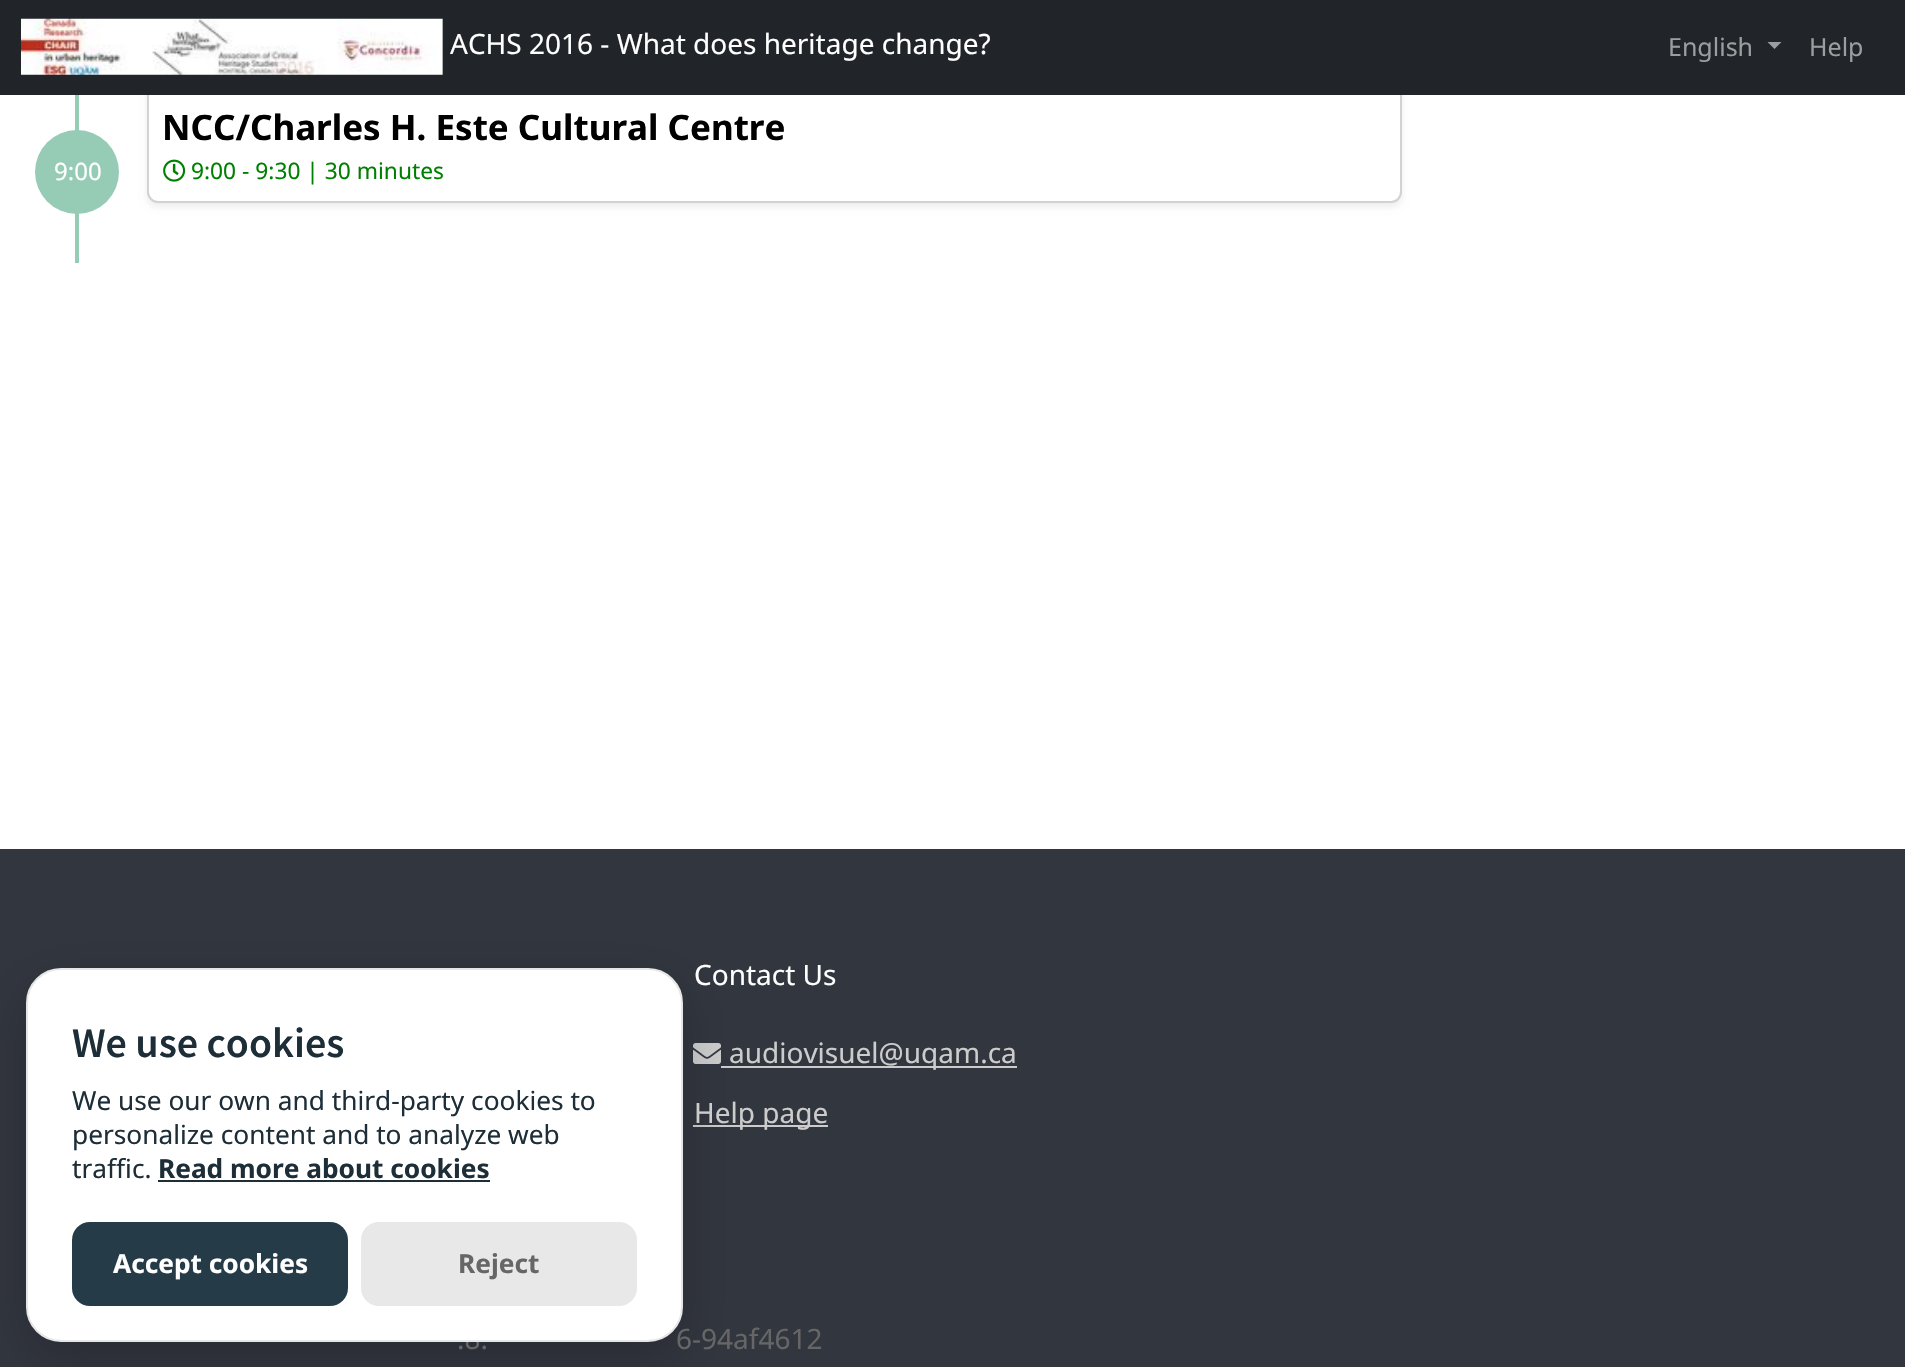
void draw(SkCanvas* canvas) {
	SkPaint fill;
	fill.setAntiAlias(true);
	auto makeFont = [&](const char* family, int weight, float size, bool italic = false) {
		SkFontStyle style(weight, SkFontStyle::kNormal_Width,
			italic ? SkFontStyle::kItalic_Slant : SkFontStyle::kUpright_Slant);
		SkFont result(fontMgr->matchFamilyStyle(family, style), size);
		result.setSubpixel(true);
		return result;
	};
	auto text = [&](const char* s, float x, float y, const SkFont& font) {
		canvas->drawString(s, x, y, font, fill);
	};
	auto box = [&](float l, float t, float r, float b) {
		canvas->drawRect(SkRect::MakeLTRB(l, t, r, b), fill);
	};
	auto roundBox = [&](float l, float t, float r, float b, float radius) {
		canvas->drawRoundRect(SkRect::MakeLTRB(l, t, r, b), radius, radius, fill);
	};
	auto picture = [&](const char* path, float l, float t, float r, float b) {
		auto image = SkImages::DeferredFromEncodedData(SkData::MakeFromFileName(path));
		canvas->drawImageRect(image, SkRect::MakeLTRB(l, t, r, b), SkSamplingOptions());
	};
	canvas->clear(0xFFFFFFFF);
	fill.setColor(0x12000000);
	fill.setMaskFilter(SkMaskFilter::MakeBlur(kNormal_SkBlurStyle, 3.5f));
	canvas->drawRoundRect(SkRect::MakeLTRB(147, 39, 1402, 207), 11, 11, fill);
	fill.setMaskFilter(nullptr);
	fill.setColor(0xFFFFFFFF);
	canvas->drawRoundRect(SkRect::MakeLTRB(148, 36, 1401, 202), 10, 10, fill);
	fill.setStyle(SkPaint::kStroke_Style);
	fill.setStrokeWidth(2);
	fill.setColor(0xFFD2D2D2);
	canvas->drawRoundRect(SkRect::MakeLTRB(148, 36, 1401, 202), 10, 10, fill);
	fill.setStyle(SkPaint::kFill_Style);
	fill.setColor(0xFF212529);
	box(0, 0, 1905, 95);
	picture("image0.png", 21, 18, 443, 75);
	fill.setColor(0xFF9B9D9F);
	canvas->drawPath(SkPathBuilder().moveTo(1767.5f, 42).lineTo(1781.5f, 42).lineTo(1774.5f, 49).close().detach(), fill);
	fill.setColor(0xFF96CBB6);
	box(75, 95, 79, 263);
	canvas->drawCircle(77, 172, 42, fill);
	picture("image1.png", 163, 159, 186, 182);
	fill.setColor(0xFF32363E);
	box(0, 849, 1905, 1367);
	picture("image2.png", 693, 1043, 721, 1064);
	fill.setColor(0xFFCCCCCC);
	box(721, 1066, 1017, 1068);
	box(693, 1125, 828, 1127);
	fill.setColor(0x33020203);
	fill.setMaskFilter(SkMaskFilter::MakeBlur(kNormal_SkBlurStyle, 26));
	canvas->drawRoundRect(SkRect::MakeLTRB(26, 985, 683, 1360), 35, 35, fill);
	fill.setMaskFilter(nullptr);
	auto font1 = makeFont("Noto Sans", 400, 28);
	fill.setColor(0xFFFFFFFF);
	text("ACHS 2016 - What does heritage change?", 450, 54, font1);
	auto font2 = makeFont("Noto Sans", 400, 25);
	fill.setColor(0xFF9B9D9F);
	text("English", 1668, 56, font2);
	text("Help", 1809, 56, font2);
	auto font3 = makeFont("Noto Sans", 400, 24);
	fill.setColor(0xFFFFFFFF);
	text("9:00", 54, 180, font3);
	auto font4 = makeFont("Noto Sans", 700, 35);
	fill.setColor(0xFF000000);
	text("NCC/Charles H. Este Cultural Centre", 162, 140, font4);
	auto font5 = makeFont("Noto Sans", 400, 22.75f);
	fill.setColor(0xFF008000);
	text("9:00 - 9:30 | 30 minutes", 191, 179, font5);
	fill.setColor(0xFFFFFFFF);
	text("Contact Us", 694, 985, font1);
	fill.setColor(0xFFCCCCCC);
	text("audiovisuel@uqam.ca", 729, 1063, font1);
	text("Help page", 694, 1123, font1);
	fill.setColor(0xFF666666);
	text(".8.", 457, 1349, font1);
	text("6-94af4612", 676, 1349, font1);
	fill.setColor(0xFFFFFFFF);
	canvas->drawRoundRect(SkRect::MakeLTRB(27, 969, 682, 1341), 34, 34, fill);
	fill.setStyle(SkPaint::kStroke_Style);
	fill.setColor(0xFFE6E6E6);
	canvas->drawRoundRect(SkRect::MakeLTRB(27, 969, 682, 1341), 34, 34, fill);
	fill.setStyle(SkPaint::kFill_Style);
	fill.setColor(0xFFE8E8E8);
	roundBox(361, 1222, 637, 1306, 18);
	auto font6 = makeFont("Noto Sans", 700, 26.25f);
	fill.setColor(0xFF666666);
	text("Reject", 458, 1273, font6);
	fill.setColor(0xFF253B48);
	roundBox(72, 1222, 348, 1306, 18);
	fill.setColor(0xFFFFFFFF);
	text("Accept cookies", 113, 1273, font6);
	fill.setColor(0xFF1D2E38);
	text("Read more about cookies", 158, 1178, font6);
	box(158, 1180, 490, 1182);
	auto font7 = makeFont("Noto Sans", 400, 26.25f);
	text("traffic.", 72, 1178, font7);
	text("personalize content and to analyze web", 72, 1144, font7);
	text("We use our own and third-party cookies to", 72, 1110, font7);
	auto font8 = makeFont("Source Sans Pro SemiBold", 600, 42);
	text("We use cookies", 72, 1057, font8);
}
